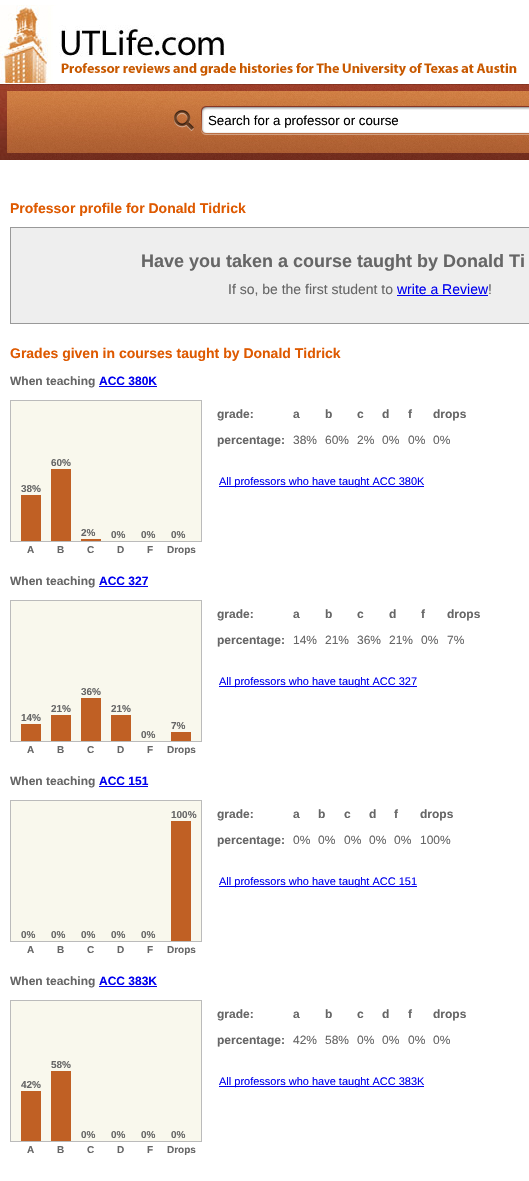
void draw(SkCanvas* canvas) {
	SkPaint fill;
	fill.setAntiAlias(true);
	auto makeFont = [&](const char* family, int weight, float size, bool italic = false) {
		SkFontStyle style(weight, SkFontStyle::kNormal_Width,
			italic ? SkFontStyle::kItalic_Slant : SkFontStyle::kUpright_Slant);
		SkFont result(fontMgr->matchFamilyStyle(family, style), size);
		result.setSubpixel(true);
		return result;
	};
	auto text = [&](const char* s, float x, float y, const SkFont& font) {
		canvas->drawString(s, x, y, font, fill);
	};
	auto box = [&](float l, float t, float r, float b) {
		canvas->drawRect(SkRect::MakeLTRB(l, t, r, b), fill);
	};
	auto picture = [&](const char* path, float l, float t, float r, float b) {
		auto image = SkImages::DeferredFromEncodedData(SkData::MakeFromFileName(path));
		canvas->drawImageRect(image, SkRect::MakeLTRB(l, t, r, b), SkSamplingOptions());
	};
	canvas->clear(0xFFFFFFFF);
	picture("image0.png", 0, 5, 517, 83);
	picture("image1.png", 0, 84, 7, 160);
	picture("image2.png", 7, 84, 529, 160);
	picture("image3.png", 174, 110, 194, 131);
	picture("image4.png", 201, 106, 529, 135);
	fill.setColor(0xFFEEEEEE);
	canvas->drawRect(SkRect::MakeLTRB(10.5f, 227.5f, 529.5f, 323.5f), fill);
	fill.setStyle(SkPaint::kStroke_Style);
	fill.setStrokeWidth(1);
	fill.setColor(0xFF999999);
	canvas->drawRect(SkRect::MakeLTRB(10.5f, 227.5f, 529.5f, 323.5f), fill);
	fill.setStyle(SkPaint::kFill_Style);
	fill.setColor(0xFF0000EE);
	box(397, 295, 488, 296);
	box(99, 386, 157, 387);
	box(219, 486, 424, 487);
	fill.setColor(0xFFF9F8ED);
	canvas->drawRect(SkRect::MakeLTRB(10.5f, 400.5f, 201.5f, 541.5f), fill);
	fill.setStyle(SkPaint::kStroke_Style);
	fill.setColor(0xFFBBBBBB);
	canvas->drawRect(SkRect::MakeLTRB(10.5f, 400.5f, 201.5f, 541.5f), fill);
	fill.setStyle(SkPaint::kFill_Style);
	fill.setColor(0xFFC06024);
	box(21, 495, 41, 541);
	box(51, 469, 71, 541);
	box(81, 539, 101, 541);
	fill.setColor(0xFF0000EE);
	box(99, 586, 148, 587);
	box(219, 686, 417, 687);
	fill.setColor(0xFFF9F8ED);
	canvas->drawRect(SkRect::MakeLTRB(10.5f, 600.5f, 201.5f, 741.5f), fill);
	fill.setStyle(SkPaint::kStroke_Style);
	fill.setColor(0xFFBBBBBB);
	canvas->drawRect(SkRect::MakeLTRB(10.5f, 600.5f, 201.5f, 741.5f), fill);
	fill.setStyle(SkPaint::kFill_Style);
	fill.setColor(0xFFC06024);
	box(21, 724, 41, 741);
	box(51, 715, 71, 741);
	box(81, 698, 101, 741);
	box(111, 715, 131, 741);
	box(171, 732, 191, 741);
	fill.setColor(0xFF0000EE);
	box(99, 786, 148, 787);
	fill.setColor(0xFFF9F8ED);
	canvas->drawRect(SkRect::MakeLTRB(10.5f, 800.5f, 201.5f, 941.5f), fill);
	fill.setStyle(SkPaint::kStroke_Style);
	fill.setColor(0xFFBBBBBB);
	canvas->drawRect(SkRect::MakeLTRB(10.5f, 800.5f, 201.5f, 941.5f), fill);
	fill.setStyle(SkPaint::kFill_Style);
	fill.setColor(0xFFC06024);
	box(171, 821, 191, 941);
	fill.setColor(0xFF0000EE);
	box(219, 886, 417, 887);
	box(99, 986, 157, 987);
	box(219, 1086, 424, 1087);
	fill.setColor(0xFFF9F8ED);
	canvas->drawRect(SkRect::MakeLTRB(10.5f, 1000.5f, 201.5f, 1141.5f), fill);
	fill.setStyle(SkPaint::kStroke_Style);
	fill.setColor(0xFFBBBBBB);
	canvas->drawRect(SkRect::MakeLTRB(10.5f, 1000.5f, 201.5f, 1141.5f), fill);
	fill.setStyle(SkPaint::kFill_Style);
	fill.setColor(0xFFC06024);
	box(21, 1091, 41, 1141);
	box(51, 1071, 71, 1141);
	auto font1 = makeFont("Liberation Sans", 400, 13.3f);
	fill.setColor(0xFF000000);
	text("Search for a professor or course", 208, 125, font1);
	auto font2 = makeFont("Liberation Sans", 700, 14);
	fill.setColor(0xFFDE5900);
	text("Professor profile for Donald Tidrick", 10, 213, font2);
	auto font3 = makeFont("Liberation Sans", 700, 18);
	fill.setColor(0xFF666666);
	text("Have you taken a course taught by Donald Ti", 141, 267, font3);
	auto font4 = makeFont("Liberation Sans", 400, 14);
	text("If so, be the first student to", 228, 294, font4);
	fill.setColor(0xFF0000EE);
	text("write a Review", 397, 294, font4);
	fill.setColor(0xFF666666);
	text("!", 488, 294, font4);
	fill.setColor(0xFFDE5900);
	text("Grades given in courses taught by Donald Tidrick", 10, 358, font2);
	auto font5 = makeFont("Liberation Sans", 700, 12);
	fill.setColor(0xFF666666);
	text("When teaching", 10, 385, font5);
	fill.setColor(0xFF0000EE);
	text("ACC 380K", 99, 385, font5);
	fill.setColor(0xFF666666);
	text("grade:", 217, 418, font5);
	text("a", 293, 418, font5);
	text("b", 325, 418, font5);
	text("c", 357, 418, font5);
	text("d", 382, 418, font5);
	text("f", 408, 418, font5);
	text("drops", 433, 418, font5);
	text("percentage:", 217, 444, font5);
	auto font6 = makeFont("Liberation Sans", 400, 12);
	text("38%", 293, 444, font6);
	text("60%", 325, 444, font6);
	text("2%", 357, 444, font6);
	text("0%", 382, 444, font6);
	text("0%", 408, 444, font6);
	text("0%", 433, 444, font6);
	auto font7 = makeFont("Liberation Sans", 400, 11);
	fill.setColor(0xFF0000EE);
	text("All professors who have taught ACC 380K", 219, 485, font7);
	auto font8 = makeFont("Liberation Sans", 700, 10);
	fill.setColor(0xFF666666);
	text("38%", 21, 492, font8);
	text("A", 27, 553, font8);
	text("60%", 51, 466, font8);
	text("B", 57, 553, font8);
	text("2%", 81, 536, font8);
	text("C", 87, 553, font8);
	text("0%", 111, 538, font8);
	text("D", 117, 553, font8);
	text("0%", 141, 538, font8);
	text("F", 147, 553, font8);
	text("0%", 171, 538, font8);
	text("Drops", 167, 553, font8);
	text("When teaching", 10, 585, font5);
	fill.setColor(0xFF0000EE);
	text("ACC 327", 99, 585, font5);
	fill.setColor(0xFF666666);
	text("grade:", 217, 618, font5);
	text("a", 293, 618, font5);
	text("b", 325, 618, font5);
	text("c", 357, 618, font5);
	text("d", 389, 618, font5);
	text("f", 421, 618, font5);
	text("drops", 447, 618, font5);
	text("percentage:", 217, 644, font5);
	text("14%", 293, 644, font6);
	text("21%", 325, 644, font6);
	text("36%", 357, 644, font6);
	text("21%", 389, 644, font6);
	text("0%", 421, 644, font6);
	text("7%", 447, 644, font6);
	fill.setColor(0xFF0000EE);
	text("All professors who have taught ACC 327", 219, 685, font7);
	fill.setColor(0xFF666666);
	text("14%", 21, 721, font8);
	text("A", 27, 753, font8);
	text("21%", 51, 712, font8);
	text("B", 57, 753, font8);
	text("36%", 81, 695, font8);
	text("C", 87, 753, font8);
	text("21%", 111, 712, font8);
	text("D", 117, 753, font8);
	text("0%", 141, 738, font8);
	text("F", 147, 753, font8);
	text("7%", 171, 729, font8);
	text("Drops", 167, 753, font8);
	text("When teaching", 10, 785, font5);
	fill.setColor(0xFF0000EE);
	text("ACC 151", 99, 785, font5);
	fill.setColor(0xFF666666);
	text("0%", 21, 938, font8);
	text("A", 27, 953, font8);
	text("0%", 51, 938, font8);
	text("B", 57, 953, font8);
	text("0%", 81, 938, font8);
	text("C", 87, 953, font8);
	text("0%", 111, 938, font8);
	text("D", 117, 953, font8);
	text("0%", 141, 938, font8);
	text("F", 147, 953, font8);
	text("100%", 171, 818, font8);
	text("Drops", 167, 953, font8);
	text("grade:", 217, 818, font5);
	text("a", 293, 818, font5);
	text("b", 318, 818, font5);
	text("c", 344, 818, font5);
	text("d", 369, 818, font5);
	text("f", 394, 818, font5);
	text("drops", 420, 818, font5);
	text("percentage:", 217, 844, font5);
	text("0%", 293, 844, font6);
	text("0%", 318, 844, font6);
	text("0%", 344, 844, font6);
	text("0%", 369, 844, font6);
	text("0%", 394, 844, font6);
	text("100%", 420, 844, font6);
	fill.setColor(0xFF0000EE);
	text("All professors who have taught ACC 151", 219, 885, font7);
	fill.setColor(0xFF666666);
	text("When teaching", 10, 985, font5);
	fill.setColor(0xFF0000EE);
	text("ACC 383K", 99, 985, font5);
	fill.setColor(0xFF666666);
	text("grade:", 217, 1018, font5);
	text("a", 293, 1018, font5);
	text("b", 325, 1018, font5);
	text("c", 357, 1018, font5);
	text("d", 382, 1018, font5);
	text("f", 408, 1018, font5);
	text("drops", 433, 1018, font5);
	text("percentage:", 217, 1044, font5);
	text("42%", 293, 1044, font6);
	text("58%", 325, 1044, font6);
	text("0%", 357, 1044, font6);
	text("0%", 382, 1044, font6);
	text("0%", 408, 1044, font6);
	text("0%", 433, 1044, font6);
	fill.setColor(0xFF0000EE);
	text("All professors who have taught ACC 383K", 219, 1085, font7);
	fill.setColor(0xFF666666);
	text("42%", 21, 1088, font8);
	text("A", 27, 1153, font8);
	text("58%", 51, 1068, font8);
	text("B", 57, 1153, font8);
	text("0%", 81, 1138, font8);
	text("C", 87, 1153, font8);
	text("0%", 111, 1138, font8);
	text("D", 117, 1153, font8);
	text("0%", 141, 1138, font8);
	text("F", 147, 1153, font8);
	text("0%", 171, 1138, font8);
	text("Drops", 167, 1153, font8);
}
